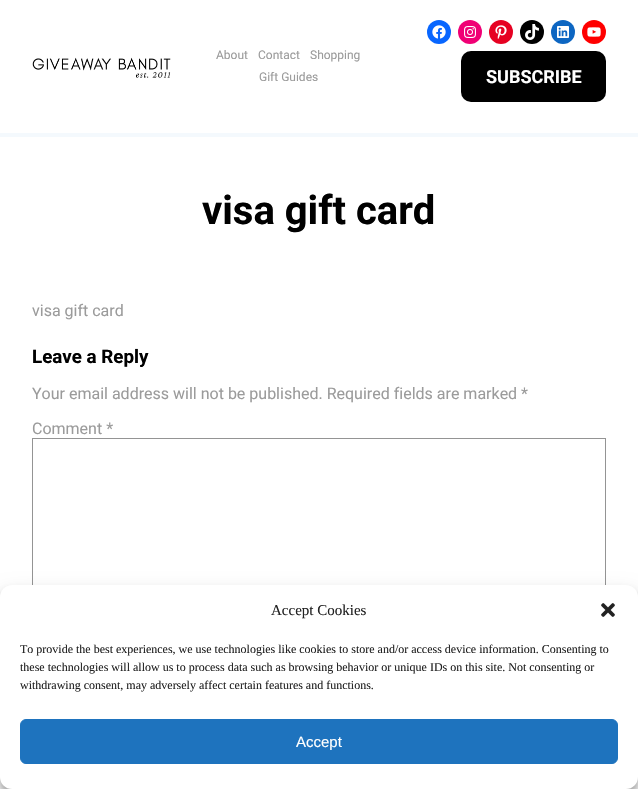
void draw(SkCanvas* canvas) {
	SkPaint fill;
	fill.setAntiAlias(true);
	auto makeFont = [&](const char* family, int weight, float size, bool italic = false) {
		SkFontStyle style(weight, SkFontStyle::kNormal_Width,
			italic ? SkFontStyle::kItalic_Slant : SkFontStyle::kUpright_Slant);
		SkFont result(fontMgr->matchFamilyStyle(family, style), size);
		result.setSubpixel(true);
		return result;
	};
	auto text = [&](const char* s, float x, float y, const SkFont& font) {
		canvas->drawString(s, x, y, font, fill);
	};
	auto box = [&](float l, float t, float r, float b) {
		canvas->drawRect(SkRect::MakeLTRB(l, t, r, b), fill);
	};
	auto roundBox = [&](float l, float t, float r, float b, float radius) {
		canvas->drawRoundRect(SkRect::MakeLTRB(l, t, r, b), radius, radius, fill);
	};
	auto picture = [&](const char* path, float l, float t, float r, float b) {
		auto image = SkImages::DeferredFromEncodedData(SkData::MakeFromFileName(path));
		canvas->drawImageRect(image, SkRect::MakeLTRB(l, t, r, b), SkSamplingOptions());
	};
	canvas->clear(0xFFFFFFFF);
	picture("image0.png", 32, 57, 171, 78);
	fill.setColor(0xFF0866FF);
	canvas->drawCircle(439, 32, 12, fill);
	picture("image1.png", 432, 25, 446, 39);
	fill.setColor(0xFFF00075);
	canvas->drawCircle(470, 32, 12, fill);
	picture("image2.png", 464, 26, 476, 38);
	fill.setColor(0xFFE60122);
	canvas->drawCircle(501, 32, 12, fill);
	picture("image3.png", 495, 25, 507, 39);
	fill.setColor(0xFF000000);
	canvas->drawCircle(532, 32, 12, fill);
	picture("image4.png", 525, 24, 539, 40);
	fill.setColor(0xFF0D66C2);
	canvas->drawCircle(563, 32, 12, fill);
	picture("image5.png", 557, 26, 569, 38);
	fill.setColor(0xFFFF0000);
	canvas->drawCircle(594, 32, 12, fill);
	picture("image6.png", 587, 27, 601, 37);
	fill.setColor(0xFF000000);
	roundBox(461, 51, 606, 102, 10);
	fill.setColor(0xFFF4F9FD);
	box(0, 133, 638, 137);
	fill.setStyle(SkPaint::kStroke_Style);
	fill.setStrokeWidth(1);
	fill.setColor(0xFF949494);
	canvas->drawRect(SkRect::MakeLTRB(32.5f, 438.5f, 605.5f, 616.5f), fill);
	fill.setStyle(SkPaint::kFill_Style);
	fill.setColor(0x3B000000);
	fill.setMaskFilter(SkMaskFilter::MakeBlur(kNormal_SkBlurStyle, 3));
	canvas->drawRoundRect(SkRect::MakeLTRB(0, 591, 638, 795), 12, 12, fill);
	fill.setMaskFilter(nullptr);
	fill.setColor(0x30000000);
	fill.setMaskFilter(SkMaskFilter::MakeBlur(kNormal_SkBlurStyle, 10));
	canvas->drawRoundRect(SkRect::MakeLTRB(0, 595, 638, 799), 12, 12, fill);
	fill.setMaskFilter(nullptr);
	fill.setColor(0xFFFFFFFF);
	roundBox(0, 585, 638, 789, 12);
	picture("image7.png", 601, 603, 615, 617);
	fill.setColor(0xFF1E73BE);
	canvas->drawRoundRect(SkRect::MakeLTRB(20.5f, 719.5f, 617.5f, 763.5f), 5.5f, 5.5f, fill);
	fill.setStyle(SkPaint::kStroke_Style);
	canvas->drawRoundRect(SkRect::MakeLTRB(20.5f, 719.5f, 617.5f, 763.5f), 5.5f, 5.5f, fill);
	auto font1 = makeFont("Roboto", 400, 12);
	fill.setStyle(SkPaint::kFill_Style);
	fill.setColor(0xFF9B9B9B);
	text("About", 216, 59, font1);
	text("Contact", 258, 59, font1);
	text("Shopping", 310, 59, font1);
	text("Gift Guides", 259, 81, font1);
	auto font2 = makeFont("Roboto", 700, 18);
	fill.setColor(0xFFFFFFFF);
	text("SUBSCRIBE", 486, 83, font2);
	auto font3 = makeFont("Roboto", 700, 40);
	fill.setColor(0xFF000000);
	text("visa gift card", 202, 224, font3);
	auto font4 = makeFont("Roboto", 400, 16);
	fill.setColor(0xFF9B9B9B);
	text("visa gift card", 32, 316, font4);
	auto font5 = makeFont("Roboto", 700, 18.75f);
	fill.setColor(0xFF000000);
	text("Leave a Reply", 32, 363, font5);
	fill.setColor(0xFF9B9B9B);
	text("Your email address will not be published. Required fields are marked *", 32, 399, font4);
	text("Comment *", 32, 434, font4);
	auto font6 = makeFont("Liberation Serif", 400, 15);
	fill.setColor(0xFF222222);
	text("Accept Cookies", 271, 615, font6);
	auto font7 = makeFont("Liberation Serif", 400, 12);
	text("To provide the best experiences, we use technologies like cookies to store and/or access device information. Consenting to", 20, 653, font7);
	text("these technologies will allow us to process data such as browsing behavior or unique IDs on this site. Not consenting or", 20, 671, font7);
	text("withdrawing consent, may adversely affect certain features and functions.", 20, 689, font7);
	auto font8 = makeFont("Liberation Sans", 400, 15);
	fill.setColor(0xFFFFFFFF);
	text("Accept", 296, 747, font8);
}
